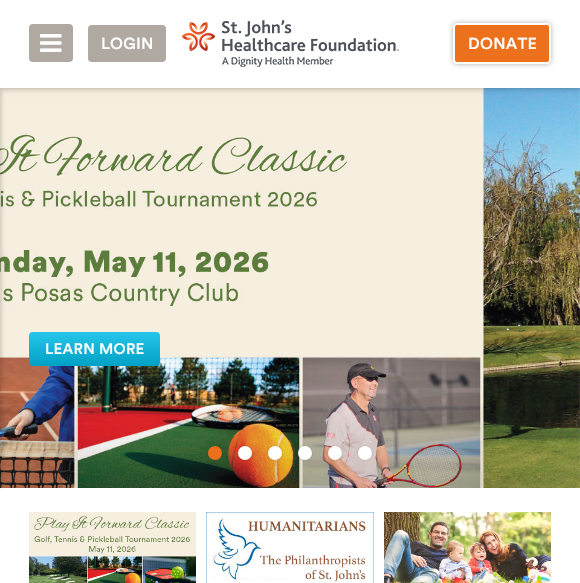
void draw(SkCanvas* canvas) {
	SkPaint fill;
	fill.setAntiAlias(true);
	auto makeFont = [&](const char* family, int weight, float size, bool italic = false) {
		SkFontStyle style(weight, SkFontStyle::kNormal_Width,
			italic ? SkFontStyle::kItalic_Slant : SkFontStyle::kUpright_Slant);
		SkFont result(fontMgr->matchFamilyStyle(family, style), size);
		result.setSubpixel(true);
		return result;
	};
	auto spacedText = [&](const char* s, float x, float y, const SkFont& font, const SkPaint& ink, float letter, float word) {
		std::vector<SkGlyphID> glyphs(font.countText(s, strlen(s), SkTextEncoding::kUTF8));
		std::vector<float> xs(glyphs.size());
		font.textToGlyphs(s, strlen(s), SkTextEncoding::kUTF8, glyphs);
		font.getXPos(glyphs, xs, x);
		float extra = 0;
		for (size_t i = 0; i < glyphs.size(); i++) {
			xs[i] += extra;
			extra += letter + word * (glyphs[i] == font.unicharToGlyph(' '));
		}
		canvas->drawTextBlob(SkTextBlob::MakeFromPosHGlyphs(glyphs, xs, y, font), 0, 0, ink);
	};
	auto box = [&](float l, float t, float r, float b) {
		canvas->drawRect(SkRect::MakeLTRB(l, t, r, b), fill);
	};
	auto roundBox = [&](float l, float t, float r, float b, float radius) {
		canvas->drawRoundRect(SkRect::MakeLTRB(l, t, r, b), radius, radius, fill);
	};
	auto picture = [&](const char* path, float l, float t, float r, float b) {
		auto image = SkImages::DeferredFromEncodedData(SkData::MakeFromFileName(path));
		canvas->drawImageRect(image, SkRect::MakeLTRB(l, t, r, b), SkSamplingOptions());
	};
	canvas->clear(0xFFFFFFFF);
	picture("image2.png", 0, 88, 580, 488);
	fill.setColor(0xFF000000);
	fill.setMaskFilter(SkMaskFilter::MakeBlur(kNormal_SkBlurStyle, 5));
	canvas->drawRect(SkRect::MakeLTRB(-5, -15, 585, 83), fill);
	fill.setMaskFilter(nullptr);
	{
		const SkColor colors[] = {0x80000000, 0x00000000};
		const float stops[] = {0, 0.8f};
		const SkPoint ends[] = {{290, 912}, {290, 250}};
		fill.setShader(SkGradientShader::MakeLinear(ends, colors, stops, 2, SkTileMode::kClamp));
		fill.setAlpha(255);
	}
	box(0, 405, 580, 488);
	fill.setShader(nullptr);
	fill.setColor(0x33000000);
	fill.setMaskFilter(SkMaskFilter::MakeBlur(kNormal_SkBlurStyle, 2.5f));
	canvas->drawRect(SkRect::MakeLTRB(-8, 89, 1, 487), fill);
	fill.setMaskFilter(nullptr);
	fill.setColor(0xFFFFFFFF);
	box(0, 0, 580, 88);
	picture("image0.png", 182, 20, 399, 67);
	fill.setColor(0xFFB0A9A1);
	roundBox(29, 24, 73, 62, 4);
	picture("image1.png", 40, 34, 62, 52);
	roundBox(88, 25, 166, 62, 4);
	fill.setColor(0x4D000000);
	fill.setMaskFilter(SkMaskFilter::MakeBlur(kNormal_SkBlurStyle, 2.5f));
	canvas->drawRoundRect(SkRect::MakeLTRB(453, 23, 551, 64), 4, 4, fill);
	fill.setMaskFilter(nullptr);
	fill.setColor(0xFFED711C);
	canvas->drawRoundRect(SkRect::MakeLTRB(454, 24, 550, 63), 3, 3, fill);
	fill.setStyle(SkPaint::kStroke_Style);
	fill.setStrokeWidth(2);
	fill.setColor(0xFFFFFFFF);
	canvas->drawRoundRect(SkRect::MakeLTRB(454, 24, 550, 63), 3, 3, fill);
	fill.setStyle(SkPaint::kFill_Style);
	{
		const SkColor colors[] = {0xFF26C6EB, 0xFF01A1C5};
		const float stops[] = {0, 1};
		const SkPoint ends[] = {{95, 332}, {95, 366}};
		fill.setShader(SkGradientShader::MakeLinear(ends, colors, stops, 2, SkTileMode::kClamp));
		fill.setAlpha(255);
	}
	roundBox(29, 332, 160, 366, 4);
	fill.setShader(nullptr);
	fill.setColor(0x33000000);
	fill.setMaskFilter(SkMaskFilter::MakeBlur(kNormal_SkBlurStyle, 1));
	canvas->drawRoundRect(SkRect::MakeLTRB(208, 446, 222, 460), 7, 7, fill);
	fill.setMaskFilter(nullptr);
	fill.setColor(0xFFED711C);
	canvas->drawCircle(215, 453, 7, fill);
	fill.setColor(0x33000000);
	fill.setMaskFilter(SkMaskFilter::MakeBlur(kNormal_SkBlurStyle, 1));
	canvas->drawRoundRect(SkRect::MakeLTRB(238, 446, 252, 460), 7, 7, fill);
	fill.setMaskFilter(nullptr);
	fill.setColor(0xFFFFFFFF);
	canvas->drawCircle(245, 453, 7, fill);
	fill.setColor(0x33000000);
	fill.setMaskFilter(SkMaskFilter::MakeBlur(kNormal_SkBlurStyle, 1));
	canvas->drawRoundRect(SkRect::MakeLTRB(268, 446, 282, 460), 7, 7, fill);
	fill.setMaskFilter(nullptr);
	fill.setColor(0xFFFFFFFF);
	canvas->drawCircle(275, 453, 7, fill);
	fill.setColor(0x33000000);
	fill.setMaskFilter(SkMaskFilter::MakeBlur(kNormal_SkBlurStyle, 1));
	canvas->drawRoundRect(SkRect::MakeLTRB(298, 446, 312, 460), 7, 7, fill);
	fill.setMaskFilter(nullptr);
	fill.setColor(0xFFFFFFFF);
	canvas->drawCircle(305, 453, 7, fill);
	fill.setColor(0x33000000);
	fill.setMaskFilter(SkMaskFilter::MakeBlur(kNormal_SkBlurStyle, 1));
	canvas->drawRoundRect(SkRect::MakeLTRB(328, 446, 342, 460), 7, 7, fill);
	fill.setMaskFilter(nullptr);
	fill.setColor(0xFFFFFFFF);
	canvas->drawCircle(335, 453, 7, fill);
	fill.setColor(0x33000000);
	fill.setMaskFilter(SkMaskFilter::MakeBlur(kNormal_SkBlurStyle, 1));
	canvas->drawRoundRect(SkRect::MakeLTRB(358, 446, 372, 460), 7, 7, fill);
	fill.setMaskFilter(nullptr);
	fill.setColor(0xFFFFFFFF);
	canvas->drawCircle(365, 453, 7, fill);
	picture("image3.png", 29, 512, 196, 583);
	picture("image4.png", 206, 512, 374, 583);
	picture("image5.png", 384, 512, 551, 583);
	auto font1 = makeFont("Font", 500, 16);
	spacedText("LOGIN", 101, 49, font1, fill, 0.25f, 0);
	spacedText("DONATE", 468, 49, font1, fill, 0.25f, 0);
	auto font2 = makeFont("Font", 500, 15);
	spacedText("LEARN MORE", 45, 354, font2, fill, 0.25f, 0);
}
